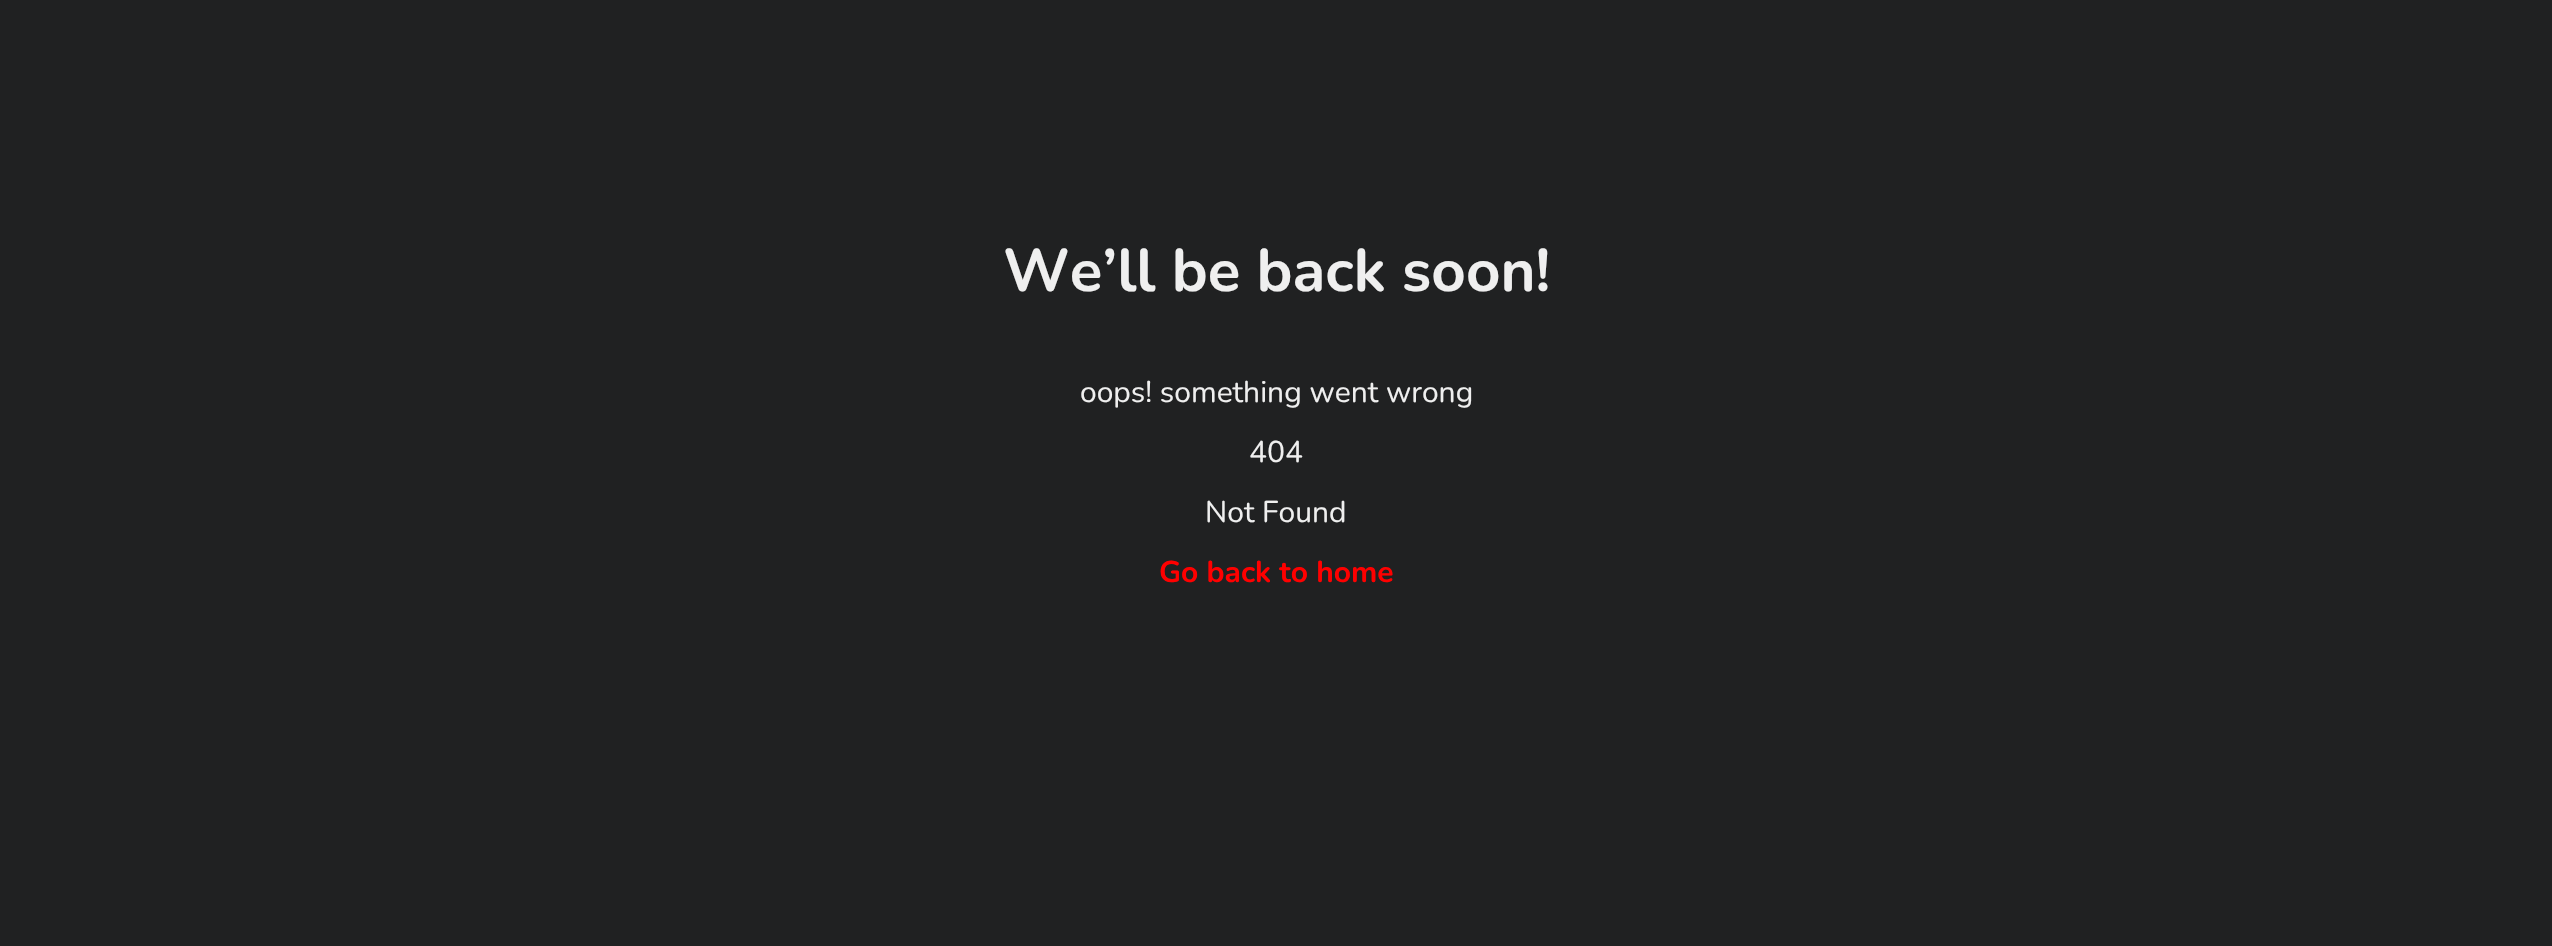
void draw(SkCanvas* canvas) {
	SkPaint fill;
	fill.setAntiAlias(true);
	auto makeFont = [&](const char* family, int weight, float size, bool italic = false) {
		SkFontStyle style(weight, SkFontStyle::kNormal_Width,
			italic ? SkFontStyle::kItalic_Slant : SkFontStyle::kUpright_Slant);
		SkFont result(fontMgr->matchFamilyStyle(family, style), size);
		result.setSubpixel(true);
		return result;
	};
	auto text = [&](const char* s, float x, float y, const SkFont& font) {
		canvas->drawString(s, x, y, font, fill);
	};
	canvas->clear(0xFF202122);
	auto font1 = makeFont("Nunito", 700, 60);
	fill.setColor(0xFFEFEFEF);
	text("We’ll be back soon!", 1003, 291, font1);
	auto font2 = makeFont("Nunito", 400, 30);
	text("oops! something went wrong", 1080, 402, font2);
	text("404", 1249, 462, font2);
	text("Not Found", 1205, 522, font2);
	auto font3 = makeFont("Nunito", 700, 30);
	fill.setColor(0xFFFF0000);
	text("Go back to home", 1159, 582, font3);
}
